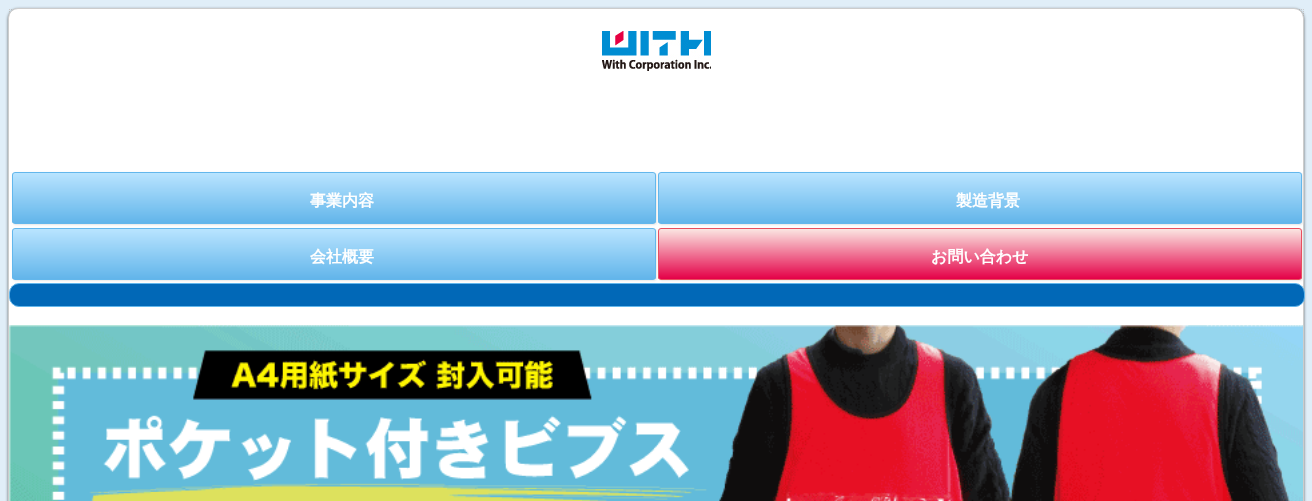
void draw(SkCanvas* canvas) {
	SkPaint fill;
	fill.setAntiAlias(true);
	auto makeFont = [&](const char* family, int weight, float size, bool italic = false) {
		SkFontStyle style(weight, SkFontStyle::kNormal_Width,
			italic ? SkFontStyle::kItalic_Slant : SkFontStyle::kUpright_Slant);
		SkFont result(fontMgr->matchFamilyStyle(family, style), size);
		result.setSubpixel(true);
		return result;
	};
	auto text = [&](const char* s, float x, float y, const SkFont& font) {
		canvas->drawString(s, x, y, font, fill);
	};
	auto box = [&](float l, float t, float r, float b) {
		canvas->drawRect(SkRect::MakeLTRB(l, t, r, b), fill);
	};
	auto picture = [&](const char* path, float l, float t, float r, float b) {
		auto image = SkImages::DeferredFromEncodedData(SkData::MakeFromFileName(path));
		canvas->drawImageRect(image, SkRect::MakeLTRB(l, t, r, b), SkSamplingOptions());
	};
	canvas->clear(0xFFE0EEF8);
	picture("image0.png", 9, 9, 1304, 18);
	fill.setColor(0x99000000);
	fill.setMaskFilter(SkMaskFilter::MakeBlur(kNormal_SkBlurStyle, 1.5f));
	canvas->drawRoundRect(SkRect::MakeLTRB(8, 9, 1304, 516), 10, 10, fill);
	fill.setMaskFilter(nullptr);
	fill.setColor(0xFFFFFFFF);
	canvas->drawRoundRect(SkRect::MakeLTRB(8.5f, 8.5f, 1303.5f, 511.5f), 9.5f, 9.5f, fill);
	fill.setStyle(SkPaint::kStroke_Style);
	fill.setStrokeWidth(1);
	fill.setColor(0xFFCCCCCC);
	canvas->drawRoundRect(SkRect::MakeLTRB(8.5f, 8.5f, 1303.5f, 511.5f), 9.5f, 9.5f, fill);
	picture("image1.png", 602, 31, 711, 71);
	fill.setStyle(SkPaint::kFill_Style);
	fill.setColor(0xFFE7E7E7);
	fill.setMaskFilter(SkMaskFilter::MakeBlur(kNormal_SkBlurStyle, 1));
	canvas->drawRoundRect(SkRect::MakeLTRB(13, 173, 657, 225), 3, 3, fill);
	fill.setMaskFilter(nullptr);
	canvas->save();
	canvas->clipPath(SkPathBuilder().moveTo(15, 172).lineTo(653, 172).cubicTo(654.5f, 172, 656, 173.5f, 656, 175).lineTo(656, 221).cubicTo(656, 222.5f, 654.5f, 224, 653, 224).lineTo(15, 224).cubicTo(13.5f, 224, 12, 222.5f, 12, 221).lineTo(12, 175).cubicTo(12, 173.5f, 13.5f, 172, 15, 172).close().detach(), true);
	{
		const SkColor colors[] = {0xFFB9E4FF, 0xFF62B5EA};
		const float stops[] = {0, 1};
		const SkPoint ends[] = {{334, 173}, {334, 223}};
		fill.setShader(SkGradientShader::MakeLinear(ends, colors, stops, 2, SkTileMode::kClamp));
		fill.setAlpha(255);
	}
	box(12, 173, 656, 223);
	canvas->restore();
	fill.setStyle(SkPaint::kStroke_Style);
	fill.setShader(nullptr);
	fill.setColor(0xFF63B7EC);
	canvas->drawRoundRect(SkRect::MakeLTRB(12.5f, 172.5f, 655.5f, 223.5f), 2.5f, 2.5f, fill);
	fill.setStyle(SkPaint::kFill_Style);
	fill.setColor(0xFFE7E7E7);
	fill.setMaskFilter(SkMaskFilter::MakeBlur(kNormal_SkBlurStyle, 1));
	canvas->drawRoundRect(SkRect::MakeLTRB(659, 173, 1303, 225), 3, 3, fill);
	fill.setMaskFilter(nullptr);
	canvas->save();
	canvas->clipPath(SkPathBuilder().moveTo(661, 172).lineTo(1299, 172).cubicTo(1300.5f, 172, 1302, 173.5f, 1302, 175).lineTo(1302, 221).cubicTo(1302, 222.5f, 1300.5f, 224, 1299, 224).lineTo(661, 224).cubicTo(659.5f, 224, 658, 222.5f, 658, 221).lineTo(658, 175).cubicTo(658, 173.5f, 659.5f, 172, 661, 172).close().detach(), true);
	{
		const SkColor colors[] = {0xFFB9E4FF, 0xFF62B5EA};
		const float stops[] = {0, 1};
		const SkPoint ends[] = {{980, 173}, {980, 223}};
		fill.setShader(SkGradientShader::MakeLinear(ends, colors, stops, 2, SkTileMode::kClamp));
		fill.setAlpha(255);
	}
	box(658, 173, 1302, 223);
	canvas->restore();
	fill.setStyle(SkPaint::kStroke_Style);
	fill.setShader(nullptr);
	fill.setColor(0xFF63B7EC);
	canvas->drawRoundRect(SkRect::MakeLTRB(658.5f, 172.5f, 1301.5f, 223.5f), 2.5f, 2.5f, fill);
	fill.setStyle(SkPaint::kFill_Style);
	fill.setColor(0xFF0168B7);
	canvas->drawRoundRect(SkRect::MakeLTRB(9.5f, 283.5f, 1304.5f, 306.5f), 9.5f, 9.5f, fill);
	fill.setStyle(SkPaint::kStroke_Style);
	fill.setColor(0xFF63B7EC);
	canvas->drawRoundRect(SkRect::MakeLTRB(9.5f, 283.5f, 1304.5f, 306.5f), 9.5f, 9.5f, fill);
	fill.setStyle(SkPaint::kFill_Style);
	fill.setColor(0xFFE7E7E7);
	fill.setMaskFilter(SkMaskFilter::MakeBlur(kNormal_SkBlurStyle, 1));
	canvas->drawRoundRect(SkRect::MakeLTRB(13, 229, 657, 281), 3, 3, fill);
	fill.setMaskFilter(nullptr);
	canvas->save();
	canvas->clipPath(SkPathBuilder().moveTo(15, 228).lineTo(653, 228).cubicTo(654.5f, 228, 656, 229.5f, 656, 231).lineTo(656, 277).cubicTo(656, 278.5f, 654.5f, 280, 653, 280).lineTo(15, 280).cubicTo(13.5f, 280, 12, 278.5f, 12, 277).lineTo(12, 231).cubicTo(12, 229.5f, 13.5f, 228, 15, 228).close().detach(), true);
	{
		const SkColor colors[] = {0xFFB9E4FF, 0xFF62B5EA};
		const float stops[] = {0, 1};
		const SkPoint ends[] = {{334, 229}, {334, 279}};
		fill.setShader(SkGradientShader::MakeLinear(ends, colors, stops, 2, SkTileMode::kClamp));
		fill.setAlpha(255);
	}
	box(12, 229, 656, 279);
	canvas->restore();
	fill.setStyle(SkPaint::kStroke_Style);
	fill.setShader(nullptr);
	fill.setColor(0xFF63B7EC);
	canvas->drawRoundRect(SkRect::MakeLTRB(12.5f, 228.5f, 655.5f, 279.5f), 2.5f, 2.5f, fill);
	fill.setStyle(SkPaint::kFill_Style);
	fill.setColor(0xFFE7E7E7);
	fill.setMaskFilter(SkMaskFilter::MakeBlur(kNormal_SkBlurStyle, 1));
	canvas->drawRoundRect(SkRect::MakeLTRB(659, 229, 1303, 281), 3, 3, fill);
	fill.setMaskFilter(nullptr);
	canvas->save();
	canvas->clipPath(SkPathBuilder().moveTo(661, 228).lineTo(1299, 228).cubicTo(1300.5f, 228, 1302, 229.5f, 1302, 231).lineTo(1302, 277).cubicTo(1302, 278.5f, 1300.5f, 280, 1299, 280).lineTo(661, 280).cubicTo(659.5f, 280, 658, 278.5f, 658, 277).lineTo(658, 231).cubicTo(658, 229.5f, 659.5f, 228, 661, 228).close().detach(), true);
	{
		const SkColor colors[] = {0xFFFBE6E2, 0xFFE40047};
		const float stops[] = {0, 1};
		const SkPoint ends[] = {{659, 229}, {659, 279}};
		fill.setShader(SkGradientShader::MakeLinear(ends, colors, stops, 2, SkTileMode::kClamp));
		fill.setAlpha(255);
	}
	box(658, 229, 1302, 279);
	canvas->restore();
	fill.setStyle(SkPaint::kStroke_Style);
	fill.setShader(nullptr);
	fill.setColor(0xFFE84E5E);
	canvas->drawRoundRect(SkRect::MakeLTRB(658.5f, 228.5f, 1301.5f, 279.5f), 2.5f, 2.5f, fill);
	picture("image2.png", 9, 325, 1303, 501);
	auto font1 = makeFont("WenQuanYi Zen Hei", 700, 16);
	fill.setStyle(SkPaint::kFill_Style);
	fill.setColor(0xFFFFFFFF);
	text("事業内容", 310, 206, font1);
	text("製造背景", 956, 206, font1);
	text("会社概要", 310, 262, font1);
	text("お問い合わせ", 931, 262, font1);
}
